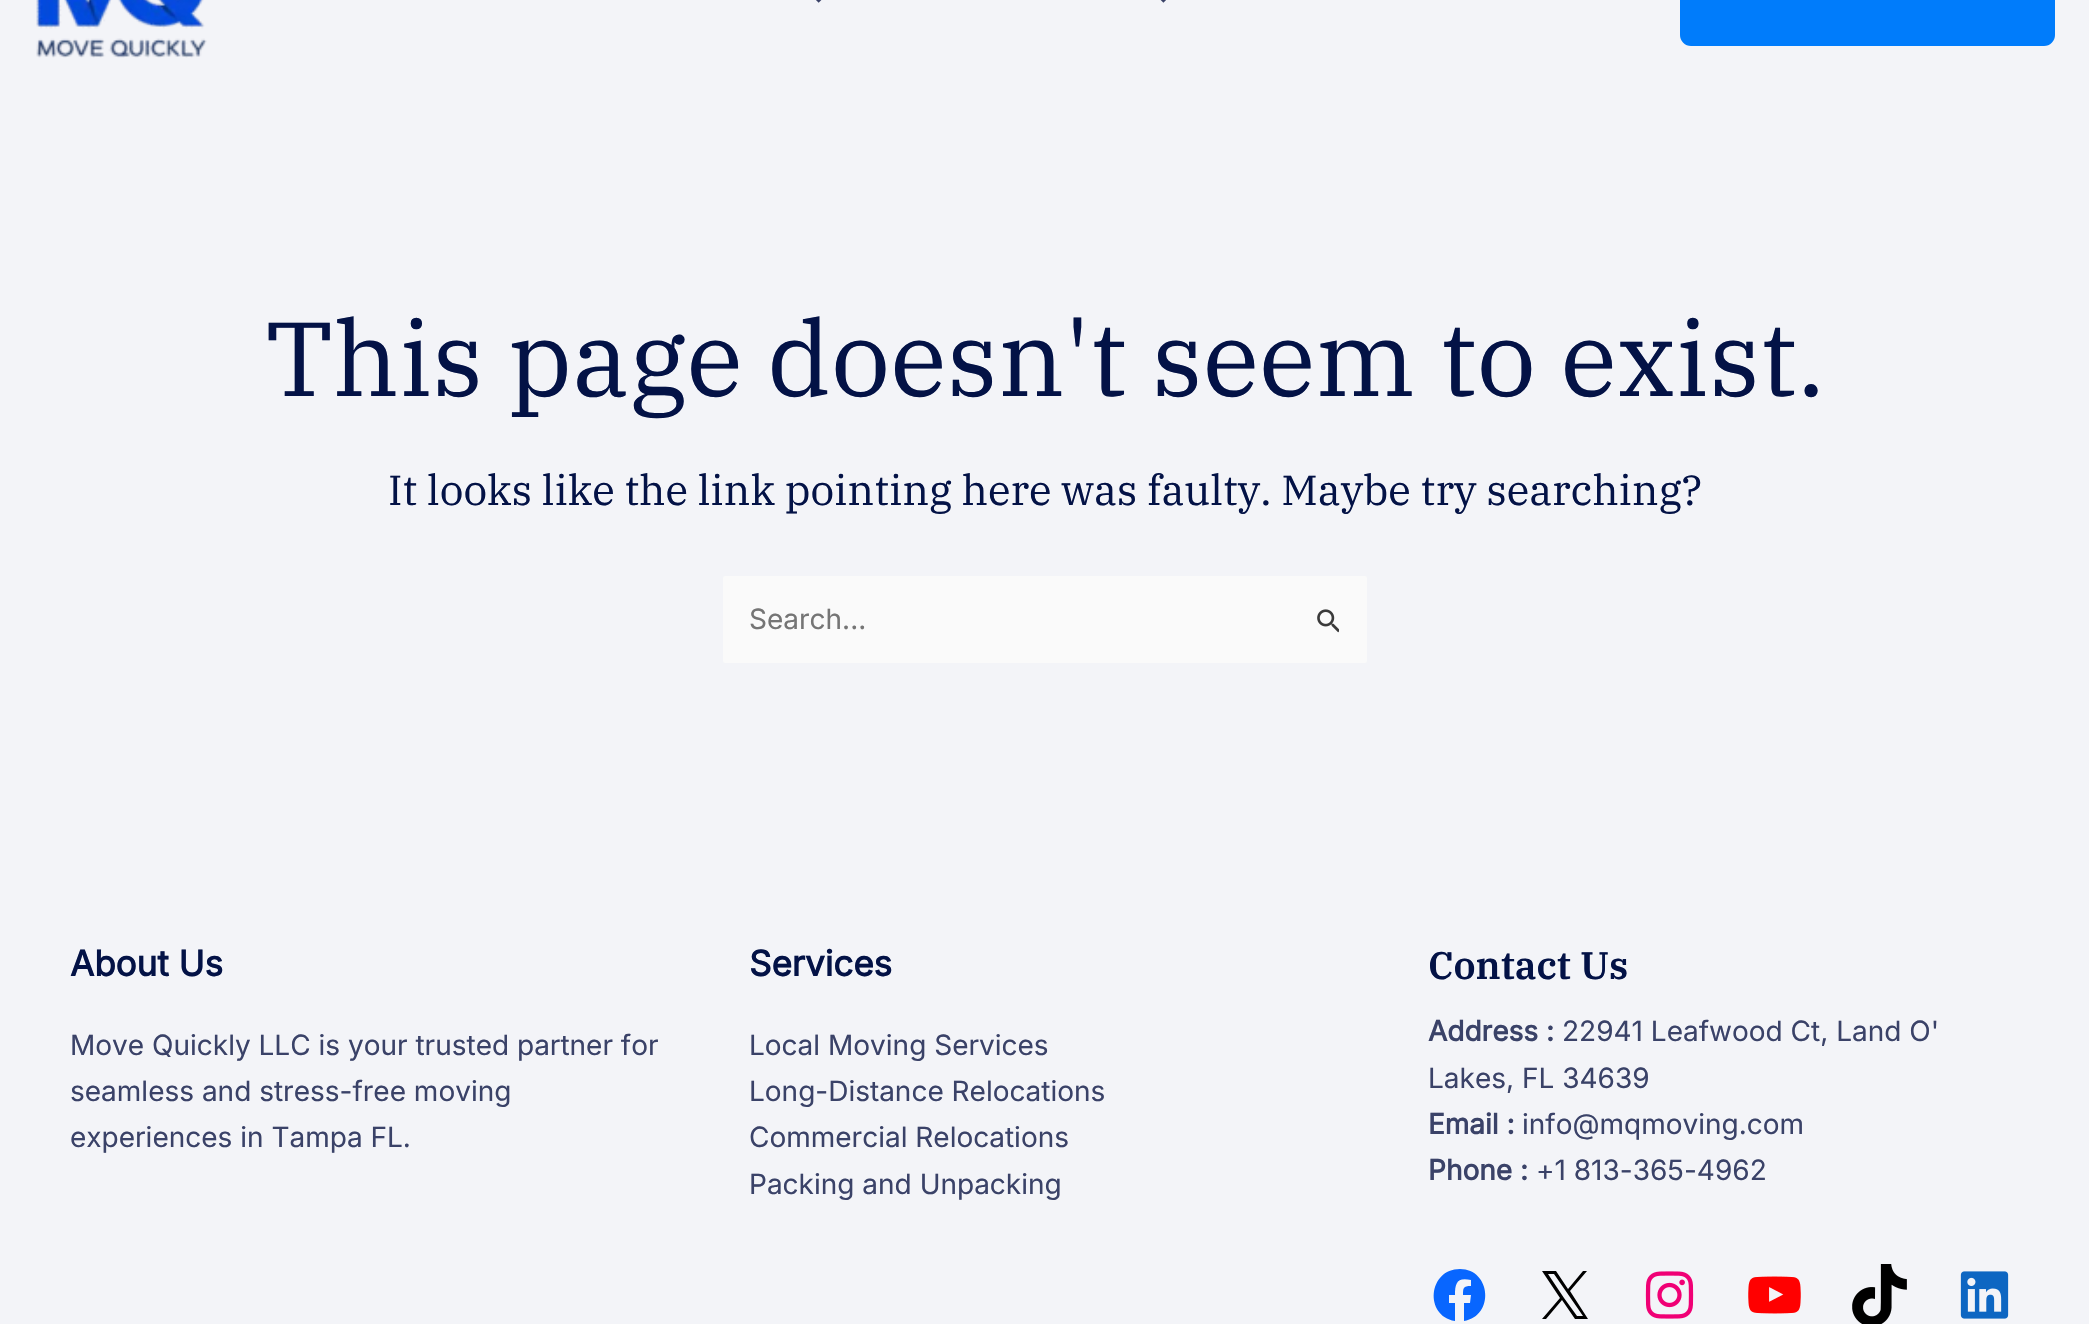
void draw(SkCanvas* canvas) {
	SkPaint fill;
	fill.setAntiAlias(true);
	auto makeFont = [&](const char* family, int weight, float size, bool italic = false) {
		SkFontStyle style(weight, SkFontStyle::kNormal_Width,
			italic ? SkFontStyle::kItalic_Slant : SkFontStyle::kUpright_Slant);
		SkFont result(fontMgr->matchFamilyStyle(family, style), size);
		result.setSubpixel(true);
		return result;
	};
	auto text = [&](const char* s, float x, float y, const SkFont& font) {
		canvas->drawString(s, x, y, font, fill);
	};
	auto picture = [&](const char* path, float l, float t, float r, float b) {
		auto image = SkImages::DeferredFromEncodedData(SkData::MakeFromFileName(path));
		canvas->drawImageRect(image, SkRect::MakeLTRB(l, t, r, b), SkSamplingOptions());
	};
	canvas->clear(0xFFF3F4F8);
	picture("image0.png", 36, 0, 207, 58);
	picture("image1.png", 816, 0, 822, 3);
	picture("image2.png", 1160, 0, 1166, 3);
	fill.setColor(0xFF007CFB);
	canvas->drawRoundRect(SkRect::MakeLTRB(1682, -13, 2053, 44), 9, 9, fill);
	fill.setStyle(SkPaint::kStroke_Style);
	fill.setStrokeWidth(4);
	canvas->drawRoundRect(SkRect::MakeLTRB(1682, -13, 2053, 44), 9, 9, fill);
	fill.setStyle(SkPaint::kFill_Style);
	fill.setColor(0xFFFAFAFA);
	canvas->drawRoundRect(SkRect::MakeLTRB(722, 575, 1368, 664), 3, 3, fill);
	fill.setStyle(SkPaint::kStroke_Style);
	fill.setStrokeWidth(2);
	fill.setColor(0xFFF3F4F8);
	canvas->drawRoundRect(SkRect::MakeLTRB(722, 575, 1368, 664), 3, 3, fill);
	picture("image3.png", 1317, 609, 1339, 633);
	fill.setStyle(SkPaint::kFill_Style);
	fill.setColor(0xFF0866FF);
	canvas->drawPath(SkPathBuilder().moveTo(1460, 1269).cubicTo(1428, 1269, 1424, 1316, 1455, 1321).lineTo(1455, 1303).lineTo(1449, 1303).lineTo(1449, 1295).lineTo(1455, 1295).cubicTo(1455, 1283, 1457, 1277, 1471, 1280).lineTo(1471, 1286).cubicTo(1463, 1286, 1463, 1288, 1463, 1295).lineTo(1471, 1295).lineTo(1470, 1303).lineTo(1464, 1303).lineTo(1464, 1321).cubicTo(1495, 1316, 1491, 1269, 1460, 1269).close().detach(), fill);
	fill.setColor(0xFF000000);
	canvas->drawPath(SkPathBuilder().moveTo(1570, 1291).lineTo(1587, 1271).lineTo(1583, 1271).lineTo(1568, 1289).lineTo(1556, 1271).lineTo(1542, 1271).lineTo(1560, 1298).lineTo(1542, 1319).lineTo(1546, 1319).lineTo(1562, 1300).lineTo(1575, 1319).lineTo(1588, 1319).close().moveTo(1564, 1298).lineTo(1548, 1274).lineTo(1554, 1274).lineTo(1583, 1316).lineTo(1577, 1316).close().detach(), fill);
	picture("image4.png", 1645, 1271, 1694, 1319);
	picture("image5.png", 1748, 1276, 1801, 1314);
	picture("image6.png", 1852, 1264, 1907, 1324);
	picture("image7.png", 1960, 1271, 2009, 1319);
	auto font1 = makeFont("IBM Plex Serif", 400, 105);
	fill.setColor(0xFF031246);
	text("This page doesn't seem to exist.", 265, 396, font1);
	auto font2 = makeFont("IBM Plex Serif", 400, 42);
	text("It looks like the link pointing here was faulty. Maybe try searching?", 388, 505, font2);
	auto font3 = makeFont("Inter", 400, 28);
	fill.setColor(0xFF757575);
	text("Search...", 749, 629, font3);
	auto font4 = makeFont("Inter", 700, 35);
	fill.setColor(0xFF031246);
	text("About Us", 70, 976, font4);
	fill.setColor(0xFF3A4268);
	text("Move Quickly LLC is your trusted partner for", 70, 1055, font3);
	text("seamless and stress-free moving", 70, 1101, font3);
	text("experiences in Tampa FL.", 70, 1147, font3);
	fill.setColor(0xFF031246);
	text("Services", 749, 976, font4);
	fill.setColor(0xFF3A4268);
	text("Local Moving Services", 749, 1055, font3);
	text("Long-Distance Relocations", 749, 1101, font3);
	text("Commercial Relocations", 749, 1147, font3);
	text("Packing and Unpacking", 749, 1194, font3);
	auto font5 = makeFont("IBM Plex Serif", 600, 38.5f);
	fill.setColor(0xFF031246);
	text("Contact Us", 1428, 979, font5);
	auto font6 = makeFont("Inter", 700, 28);
	fill.setColor(0xFF3A4268);
	text("Address :", 1428, 1041, font6);
	text("22941 Leafwood Ct, Land O'", 1562, 1041, font3);
	text("Lakes, FL 34639", 1428, 1088, font3);
	text("Email :", 1428, 1134, font6);
	text("info@mqmoving.com", 1522, 1134, font3);
	text("Phone :", 1428, 1180, font6);
	text("+1 813-365-4962", 1536, 1180, font3);
}
